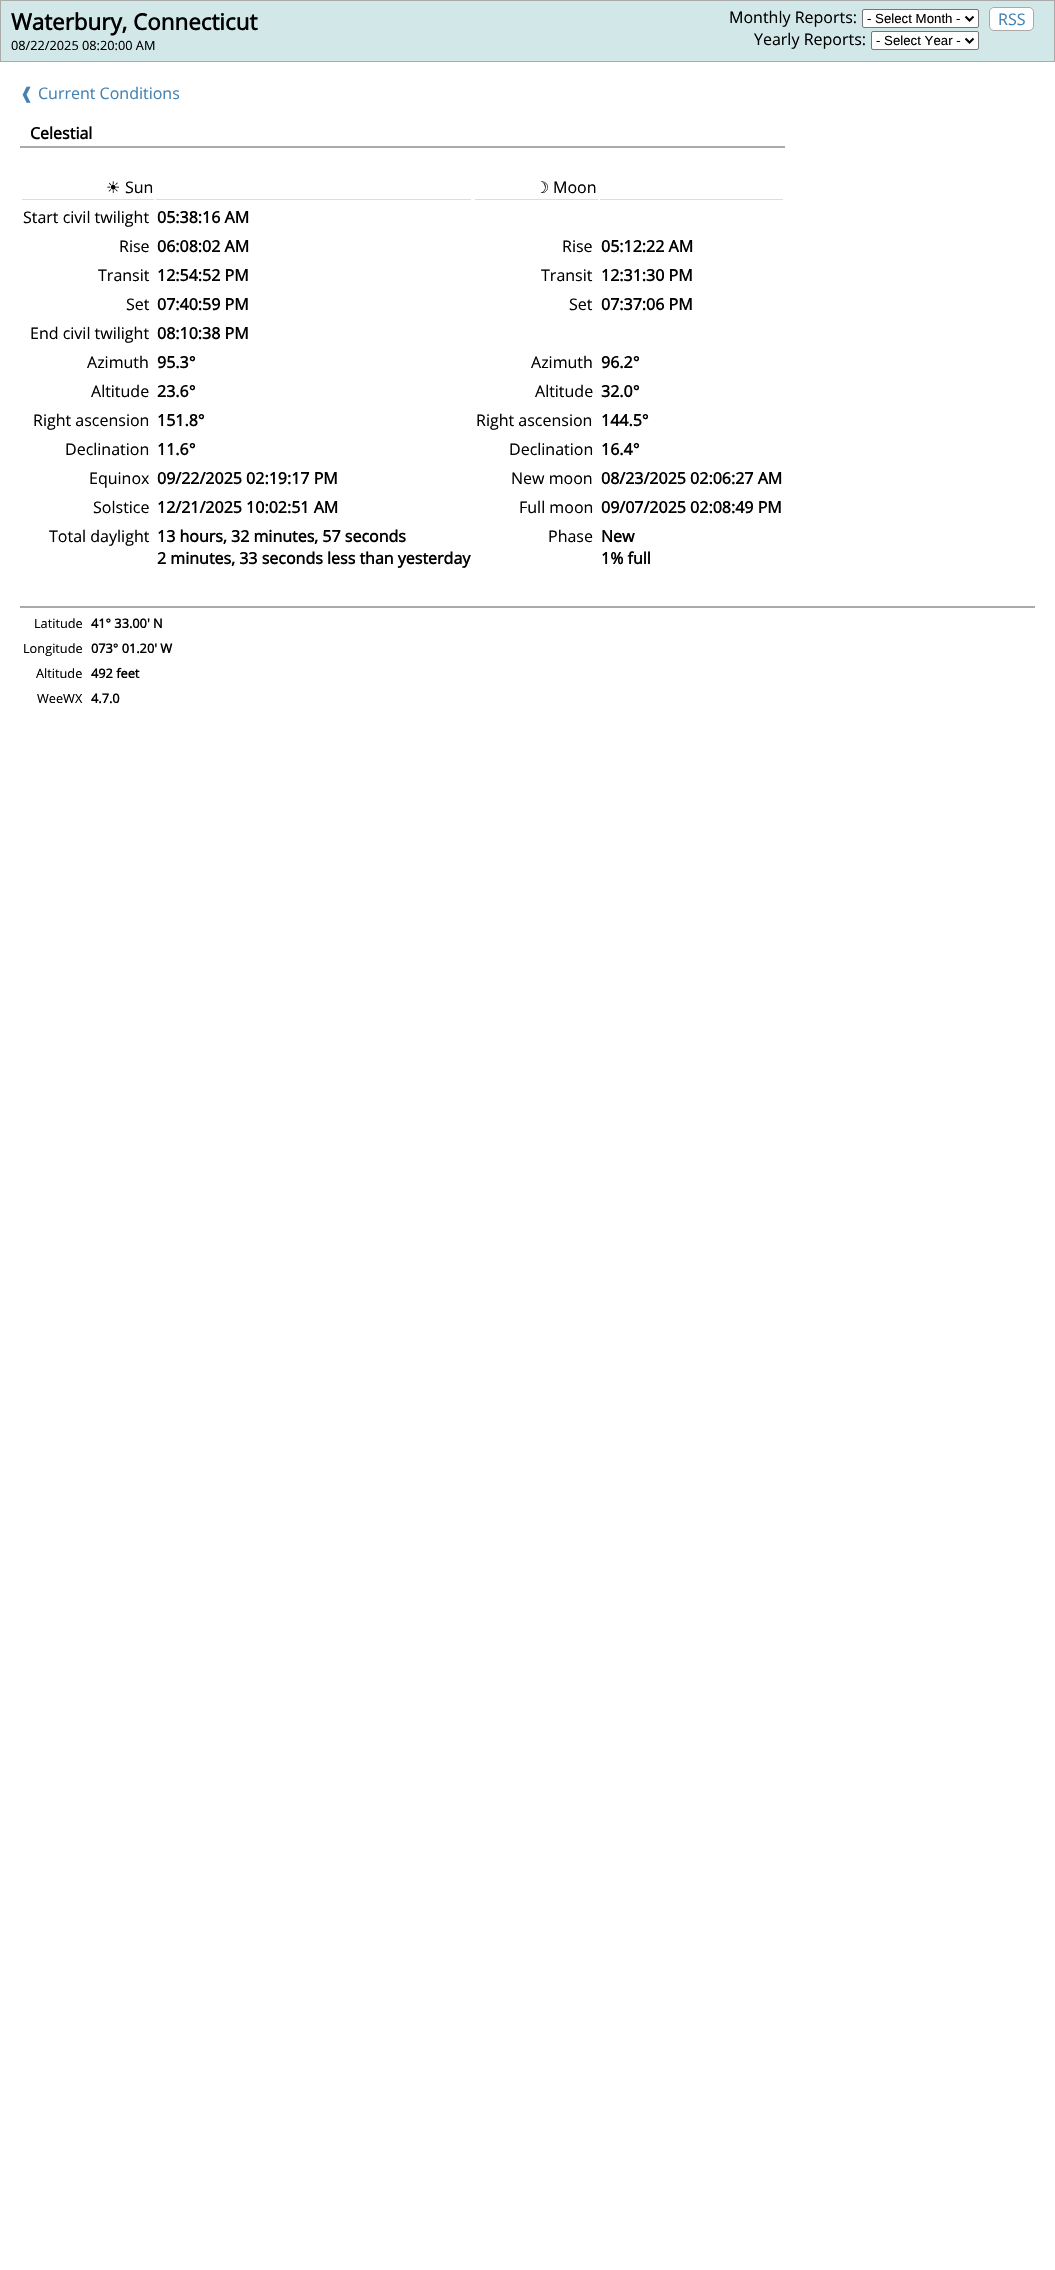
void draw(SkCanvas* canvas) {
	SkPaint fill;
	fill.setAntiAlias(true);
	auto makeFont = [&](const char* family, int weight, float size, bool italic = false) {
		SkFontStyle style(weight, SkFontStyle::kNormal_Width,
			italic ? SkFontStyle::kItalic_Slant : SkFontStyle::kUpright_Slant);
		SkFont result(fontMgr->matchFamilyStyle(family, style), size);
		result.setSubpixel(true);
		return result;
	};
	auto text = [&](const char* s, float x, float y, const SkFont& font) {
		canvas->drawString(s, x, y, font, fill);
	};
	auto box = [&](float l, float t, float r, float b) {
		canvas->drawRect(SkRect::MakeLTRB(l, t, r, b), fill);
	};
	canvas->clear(0xFFFFFFFF);
	fill.setColor(0xFFD2E8E8);
	canvas->drawRect(SkRect::MakeLTRB(0.5f, 0.5f, 1054.5f, 61.5f), fill);
	fill.setStyle(SkPaint::kStroke_Style);
	fill.setStrokeWidth(1);
	fill.setColor(0xFFAAAAAA);
	canvas->drawRect(SkRect::MakeLTRB(0.5f, 0.5f, 1054.5f, 61.5f), fill);
	fill.setStyle(SkPaint::kFill_Style);
	fill.setColor(0xFFFFFFFF);
	canvas->drawRoundRect(SkRect::MakeLTRB(862.5f, 9.5f, 978.5f, 27.5f), 1.5f, 1.5f, fill);
	fill.setStyle(SkPaint::kStroke_Style);
	fill.setColor(0xFF767676);
	canvas->drawRoundRect(SkRect::MakeLTRB(862.5f, 9.5f, 978.5f, 27.5f), 1.5f, 1.5f, fill);
	fill.setStrokeWidth(2);
	fill.setColor(0xFF000000);
	canvas->drawPath(SkPathBuilder().moveTo(965.5f, 16.5f).lineTo(969.5f, 20.5f).lineTo(973.5f, 16.5f).detach(), fill);
	fill.setStyle(SkPaint::kFill_Style);
	fill.setColor(0xFFFFFFFF);
	canvas->drawRoundRect(SkRect::MakeLTRB(871.5f, 31.5f, 978.5f, 49.5f), 1.5f, 1.5f, fill);
	fill.setStyle(SkPaint::kStroke_Style);
	fill.setStrokeWidth(1);
	fill.setColor(0xFF767676);
	canvas->drawRoundRect(SkRect::MakeLTRB(871.5f, 31.5f, 978.5f, 49.5f), 1.5f, 1.5f, fill);
	fill.setStrokeWidth(2);
	fill.setColor(0xFF000000);
	canvas->drawPath(SkPathBuilder().moveTo(965.5f, 38.5f).lineTo(969.5f, 42.5f).lineTo(973.5f, 38.5f).detach(), fill);
	fill.setStyle(SkPaint::kFill_Style);
	fill.setColor(0xFFFFFFFF);
	canvas->drawRoundRect(SkRect::MakeLTRB(989.5f, 7.5f, 1033.5f, 30.5f), 4.5f, 4.5f, fill);
	fill.setStyle(SkPaint::kStroke_Style);
	fill.setStrokeWidth(1);
	fill.setColor(0xFFAAAAAA);
	canvas->drawRoundRect(SkRect::MakeLTRB(989.5f, 7.5f, 1033.5f, 30.5f), 4.5f, 4.5f, fill);
	fill.setStyle(SkPaint::kFill_Style);
	box(20, 146, 785, 148);
	fill.setColor(0xFFDDDDDD);
	box(22, 199, 154, 200);
	box(156, 199, 471, 200);
	box(475, 199, 598, 200);
	box(600, 199, 783, 200);
	fill.setColor(0xFFAAAAAA);
	box(20, 606, 1035, 608);
	auto font1 = makeFont("Open Sans", 700, 22.4f);
	fill.setColor(0xFF000000);
	text("Waterbury, Connecticut", 11, 30, font1);
	auto font2 = makeFont("Open Sans", 400, 12.75f);
	text("08/22/2025 08:20:00 AM", 11, 50, font2);
	auto font3 = makeFont("Open Sans", 400, 16);
	text("Monthly Reports:", 729, 23, font3);
	auto font4 = makeFont("Liberation Sans", 400, 13.25f);
	text("- Select Month -", 867, 23, font4);
	text("Yearly Reports:", 754, 45, font3);
	text("- Select Year -", 876, 45, font4);
	fill.setColor(0xFF4282B4);
	text("RSS", 998, 25, font3);
	auto font5 = makeFont("DejaVu Sans", 400, 16);
	text("❰", 20, 99, font5);
	text("Current Conditions", 38, 99, font3);
	auto font6 = makeFont("Open Sans", 700, 16);
	fill.setColor(0xFF000000);
	text("Celestial", 30, 139, font6);
	text("☀", 106, 193, font5);
	text("Sun", 125, 193, font3);
	text("Start civil twilight", 23, 223, font3);
	text("05:38:16 AM", 157, 223, font6);
	text("Rise", 119, 252, font3);
	text("06:08:02 AM", 157, 252, font6);
	text("Transit", 98, 281, font3);
	text("12:54:52 PM", 157, 281, font6);
	text("Set", 126, 310, font3);
	text("07:40:59 PM", 157, 310, font6);
	text("End civil twilight", 30, 339, font3);
	text("08:10:38 PM", 157, 339, font6);
	text("Azimuth", 87, 368, font3);
	text("95.3°", 157, 368, font6);
	text("Altitude", 91, 397, font3);
	text("23.6°", 157, 397, font6);
	text("Right ascension", 33, 426, font3);
	text("151.8°", 157, 426, font6);
	text("Declination", 65, 455, font3);
	text("11.6°", 157, 455, font6);
	text("Equinox", 89, 484, font3);
	text("09/22/2025 02:19:17 PM", 157, 484, font6);
	text("Solstice", 93, 513, font3);
	text("12/21/2025 10:02:51 AM", 157, 513, font6);
	text("Total daylight", 49, 542, font3);
	text("13 hours, 32 minutes, 57 seconds", 157, 542, font6);
	text("2 minutes, 33 seconds less than yesterday", 157, 564, font6);
	text("☽", 535, 193, font5);
	text("Moon", 553, 193, font3);
	text("Rise", 562, 252, font3);
	text("05:12:22 AM", 601, 252, font6);
	text("Transit", 541, 281, font3);
	text("12:31:30 PM", 601, 281, font6);
	text("Set", 569, 310, font3);
	text("07:37:06 PM", 601, 310, font6);
	text("Azimuth", 531, 368, font3);
	text("96.2°", 601, 368, font6);
	text("Altitude", 535, 397, font3);
	text("32.0°", 601, 397, font6);
	text("Right ascension", 476, 426, font3);
	text("144.5°", 601, 426, font6);
	text("Declination", 509, 455, font3);
	text("16.4°", 601, 455, font6);
	text("New moon", 511, 484, font3);
	text("08/23/2025 02:06:27 AM", 601, 484, font6);
	text("Full moon", 519, 513, font3);
	text("09/07/2025 02:08:49 PM", 601, 513, font6);
	text("Phase", 548, 542, font3);
	text("New", 601, 542, font6);
	text("1% full", 601, 564, font6);
	text("Latitude", 34, 628, font2);
	auto font7 = makeFont("Open Sans", 700, 12.75f);
	text("41° 33.00' N", 91, 628, font7);
	text("Longitude", 23, 653, font2);
	text("073° 01.20' W", 91, 653, font7);
	text("Altitude", 36, 678, font2);
	text("492 feet", 91, 678, font7);
	text("WeeWX", 37, 703, font2);
	text("4.7.0", 91, 703, font7);
}
